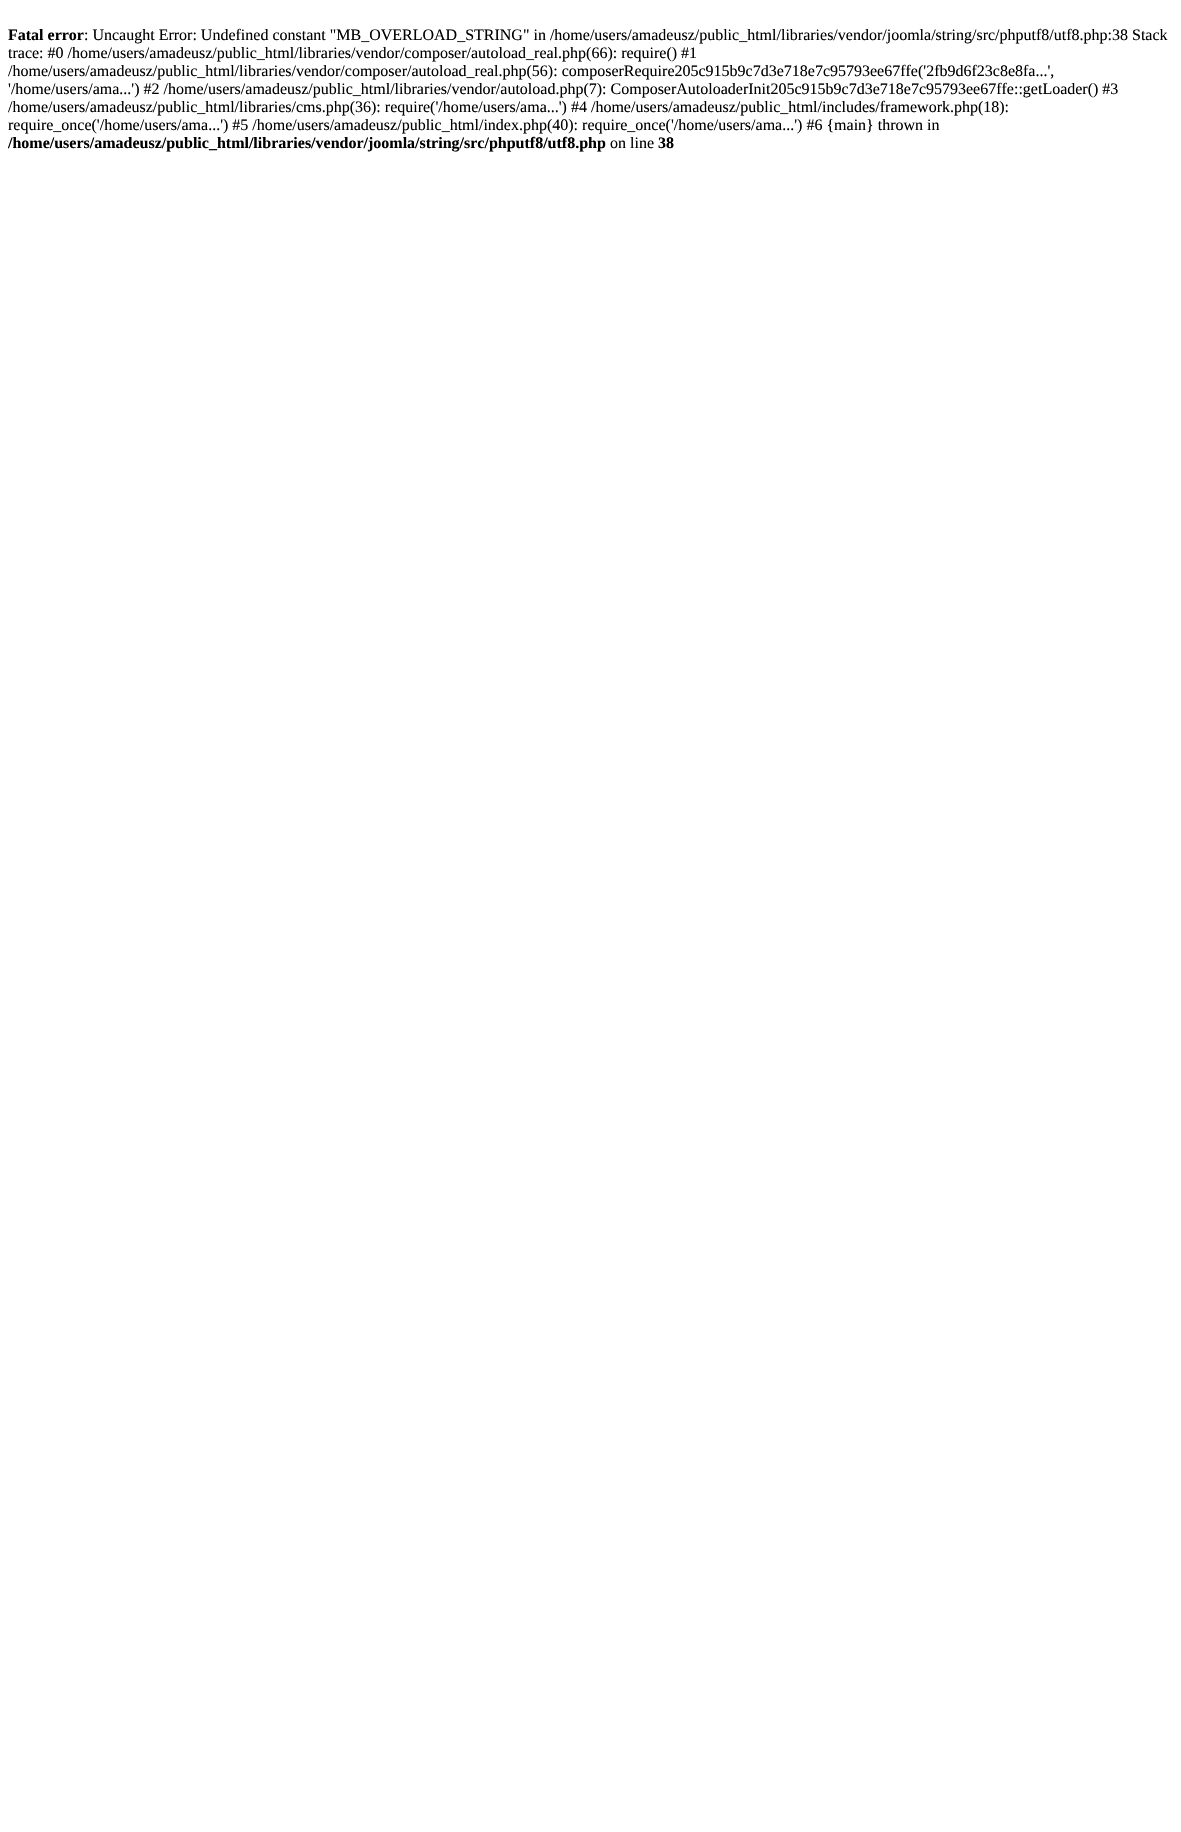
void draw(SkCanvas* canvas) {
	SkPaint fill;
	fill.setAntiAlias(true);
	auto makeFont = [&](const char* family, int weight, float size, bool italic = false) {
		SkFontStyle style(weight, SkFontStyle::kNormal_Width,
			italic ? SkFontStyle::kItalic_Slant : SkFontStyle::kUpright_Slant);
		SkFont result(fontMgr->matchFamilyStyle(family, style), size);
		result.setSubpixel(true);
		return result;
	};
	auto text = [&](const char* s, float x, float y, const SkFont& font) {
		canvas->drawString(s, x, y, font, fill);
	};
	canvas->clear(0xFFFFFFFF);
	auto font1 = makeFont("Liberation Serif", 700, 16);
	fill.setColor(0xFF000000);
	text("Fatal error", 8, 40, font1);
	auto font2 = makeFont("Liberation Serif", 400, 16);
	text(": Uncaught Error: Undefined constant \"MB_OVERLOAD_STRING\" in /home/users/amadeusz/public_html/libraries/vendor/joomla/string/src/phputf8/utf8.php:38 Stack", 84, 40, font2);
	text("trace: #0 /home/users/amadeusz/public_html/libraries/vendor/composer/autoload_real.php(66): require() #1", 8, 58, font2);
	text("/home/users/amadeusz/public_html/libraries/vendor/composer/autoload_real.php(56): composerRequire205c915b9c7d3e718e7c95793ee67ffe('2fb9d6f23c8e8fa...',", 8, 76, font2);
	text("'/home/users/ama...') #2 /home/users/amadeusz/public_html/libraries/vendor/autoload.php(7): ComposerAutoloaderInit205c915b9c7d3e718e7c95793ee67ffe::getLoader() #3", 8, 94, font2);
	text("/home/users/amadeusz/public_html/libraries/cms.php(36): require('/home/users/ama...') #4 /home/users/amadeusz/public_html/includes/framework.php(18):", 8, 112, font2);
	text("require_once('/home/users/ama...') #5 /home/users/amadeusz/public_html/index.php(40): require_once('/home/users/ama...') #6 {main} thrown in", 8, 130, font2);
	text("/home/users/amadeusz/public_html/libraries/vendor/joomla/string/src/phputf8/utf8.php", 8, 148, font1);
	text("on line", 610, 148, font2);
	text("38", 658, 148, font1);
}
